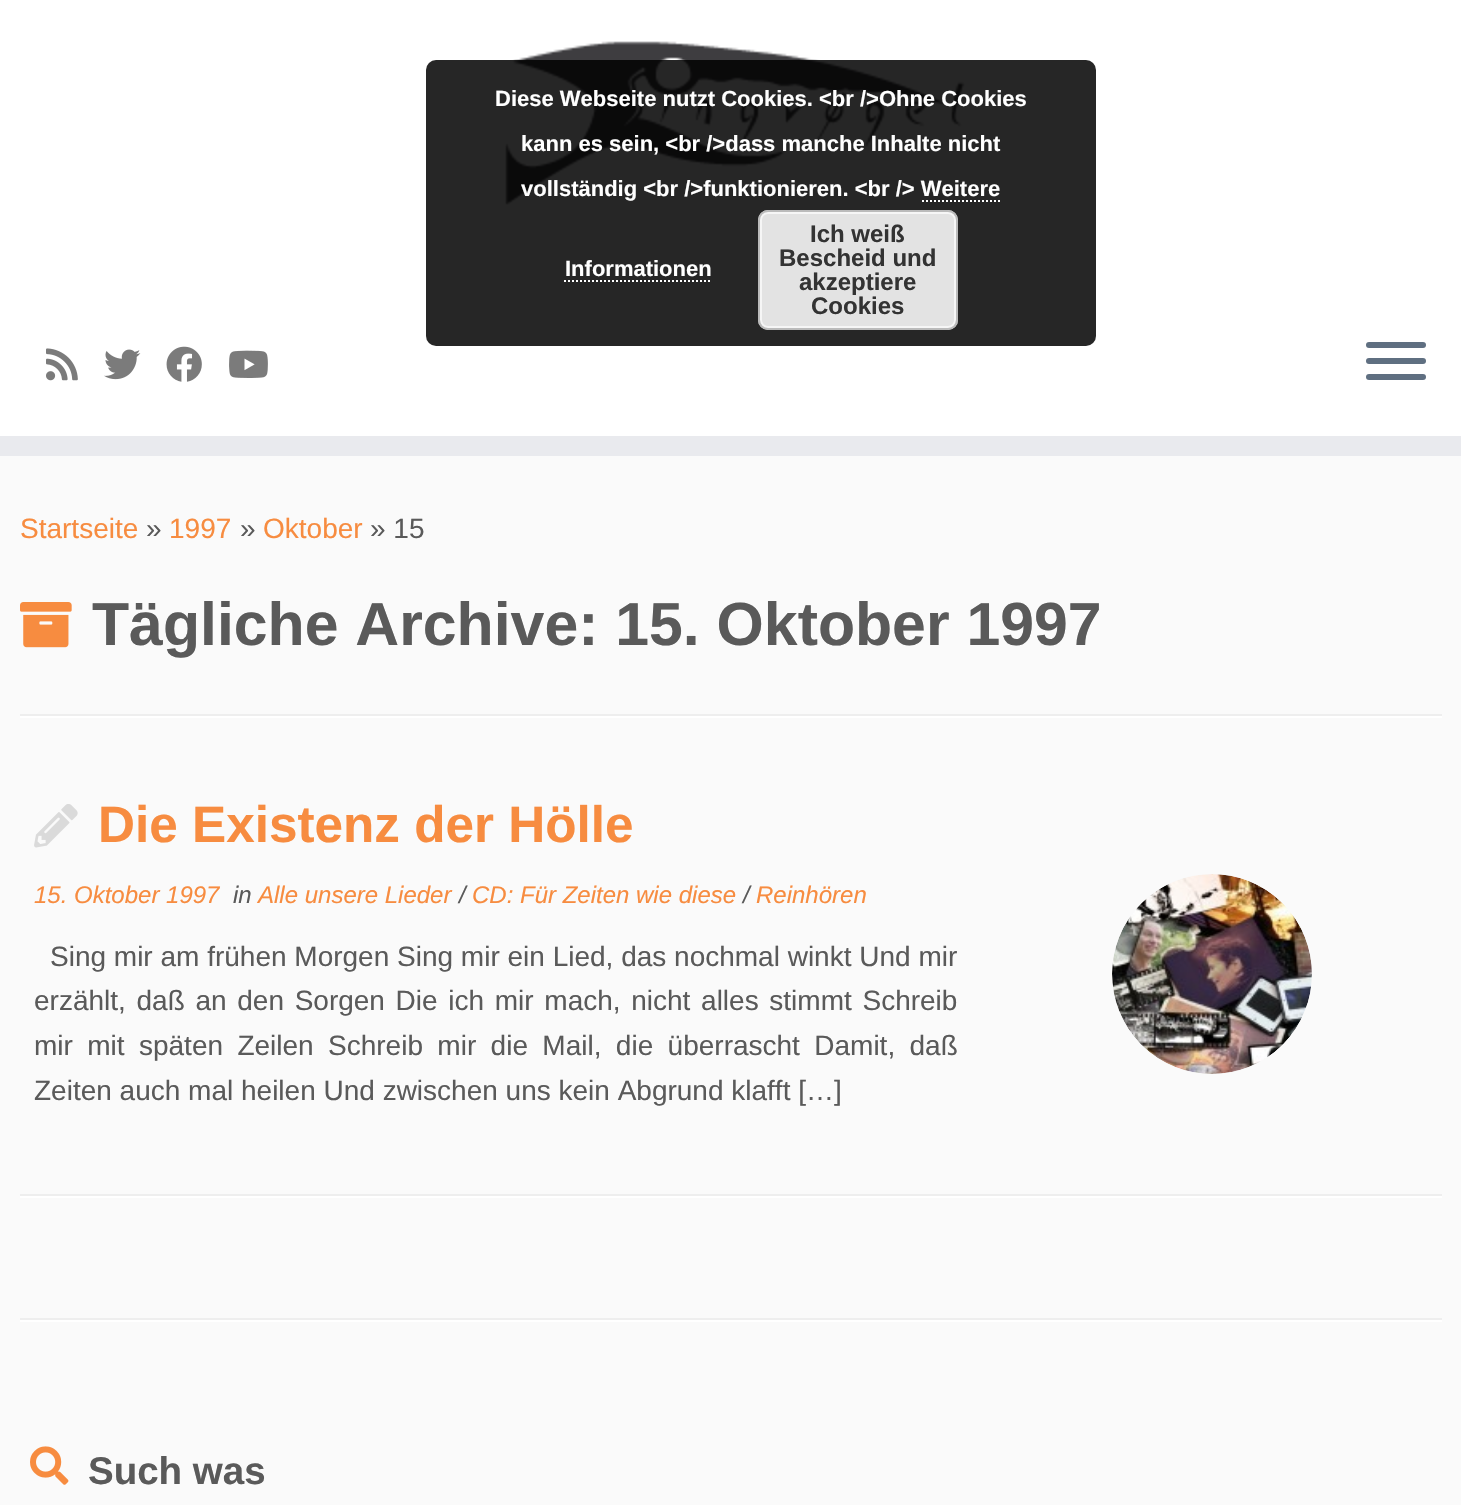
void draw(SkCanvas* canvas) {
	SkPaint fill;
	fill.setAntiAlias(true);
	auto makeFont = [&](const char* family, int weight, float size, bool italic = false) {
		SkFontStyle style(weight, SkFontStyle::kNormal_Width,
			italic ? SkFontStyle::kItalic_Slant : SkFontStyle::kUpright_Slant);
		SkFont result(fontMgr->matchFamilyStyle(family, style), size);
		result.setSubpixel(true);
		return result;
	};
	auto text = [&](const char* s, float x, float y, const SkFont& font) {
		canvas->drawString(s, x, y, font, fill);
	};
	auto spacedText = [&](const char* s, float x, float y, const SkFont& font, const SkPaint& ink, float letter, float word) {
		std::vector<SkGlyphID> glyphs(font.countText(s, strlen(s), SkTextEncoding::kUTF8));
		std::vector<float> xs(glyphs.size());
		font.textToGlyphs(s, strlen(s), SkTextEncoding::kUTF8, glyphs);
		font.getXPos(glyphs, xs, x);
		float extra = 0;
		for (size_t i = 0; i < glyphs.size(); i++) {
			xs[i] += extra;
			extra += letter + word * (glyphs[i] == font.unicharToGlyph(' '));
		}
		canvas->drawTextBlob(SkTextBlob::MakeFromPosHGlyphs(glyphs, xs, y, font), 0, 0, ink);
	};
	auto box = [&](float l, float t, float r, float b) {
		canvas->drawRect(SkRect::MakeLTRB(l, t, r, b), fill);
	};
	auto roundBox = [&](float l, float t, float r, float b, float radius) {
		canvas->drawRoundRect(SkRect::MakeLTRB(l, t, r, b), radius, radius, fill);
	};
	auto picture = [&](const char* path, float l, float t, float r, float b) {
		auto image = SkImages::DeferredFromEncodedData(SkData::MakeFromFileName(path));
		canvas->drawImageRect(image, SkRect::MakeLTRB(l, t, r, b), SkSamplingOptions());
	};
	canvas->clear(0xFFFAFAFA);
	fill.setColor(0xFFFFFFFF);
	box(0, 0, 1461, 436);
	picture("image0.png", 505, 41, 965, 205);
	fill.setColor(0xD9000000);
	roundBox(426, 60, 1096, 346, 10);
	fill.setStyle(SkPaint::kStroke_Style);
	fill.setStrokeWidth(2);
	fill.setColor(0xFFFFFFFF);
	fill.setPathEffect(SkDashPathEffect::Make({{2, 2}}, 0));
	canvas->drawPath(SkPathBuilder().moveTo(922, 201).lineTo(1000, 201).detach(), fill);
	fill.setPathEffect(nullptr);
	fill.setPathEffect(SkDashPathEffect::Make({{2, 2}}, 0));
	canvas->drawPath(SkPathBuilder().moveTo(564, 281).lineTo(712, 281).detach(), fill);
	fill.setPathEffect(nullptr);
	fill.setStyle(SkPaint::kFill_Style);
	fill.setColor(0xFFE3E3E3);
	roundBox(758, 210, 958, 330, 10);
	fill.setStyle(SkPaint::kStroke_Style);
	fill.setColor(0xFFF6F6F6);
	canvas->drawRoundRect(SkRect::MakeLTRB(761, 213, 955, 327), 7, 7, fill);
	fill.setColor(0xFFBBBBBB);
	canvas->drawRoundRect(SkRect::MakeLTRB(759, 211, 957, 329), 9, 9, fill);
	fill.setStyle(SkPaint::kFill_Style);
	fill.setColor(0xFFE9EAEE);
	box(0, 436, 1461, 456);
	picture("image1.png", 46, 348, 78, 381);
	picture("image2.png", 104, 349, 141, 380);
	picture("image3.png", 166, 346, 202, 382);
	picture("image4.png", 229, 350, 268, 378);
	fill.setColor(0xFF5F6F81);
	roundBox(1366, 342, 1426, 348, 3);
	roundBox(1366, 358, 1426, 364, 3);
	roundBox(1366, 374, 1426, 380, 3);
	picture("image5.png", 20, 602, 72, 648);
	fill.setColor(0xFFEEEEEE);
	box(20, 714, 1442, 716);
	fill.setColor(0xFFFFFFFF);
	box(20, 716, 1442, 718);
	picture("image6.png", 34, 804, 78, 848);
	picture("image7.png", 1112, 874, 1312, 1074);
	fill.setColor(0xFFEEEEEE);
	box(20, 1194, 1442, 1196);
	fill.setColor(0xFFFFFFFF);
	box(20, 1196, 1442, 1198);
	fill.setColor(0xFFEEEEEE);
	box(20, 1318, 1442, 1320);
	fill.setColor(0xFFFFFFFF);
	box(20, 1320, 1442, 1322);
	picture("image8.png", 30, 1446, 69, 1485);
	auto font1 = makeFont("Liberation Sans", 700, 22);
	text("Diese Webseite nutzt Cookies. <br />Ohne Cookies", 495, 106, font1);
	text("kann es sein, <br />dass manche Inhalte nicht", 521, 151, font1);
	text("vollständig <br />funktionieren. <br /> Weitere", 521, 196, font1);
	text("Informationen", 565, 276, font1);
	auto font2 = makeFont("Liberation Sans", 700, 24);
	fill.setColor(0xFF333333);
	text("Ich weiß", 810, 242, font2);
	text("Bescheid und", 779, 266, font2);
	text("akzeptiere", 799, 290, font2);
	text("Cookies", 811, 314, font2);
	auto font3 = makeFont("Liberation Sans", 400, 28);
	fill.setColor(0xFFF78C40);
	text("Startseite", 20, 538, font3);
	fill.setColor(0xFF5A5A5A);
	text("»", 146, 538, font3);
	fill.setColor(0xFFF78C40);
	text("1997", 169, 538, font3);
	fill.setColor(0xFF5A5A5A);
	text("»", 240, 538, font3);
	fill.setColor(0xFFF78C40);
	text("Oktober", 263, 538, font3);
	fill.setColor(0xFF5A5A5A);
	text("» 15", 370, 538, font3);
	auto font4 = makeFont("Liberation Sans", 700, 60.75f);
	text("Tägliche Archive: 15. Oktober 1997", 92, 645, font4);
	auto font5 = makeFont("Liberation Sans", 700, 51.25f);
	fill.setColor(0xFFF78C40);
	text("Die Existenz der Hölle", 98, 842, font5);
	auto font6 = makeFont("Liberation Sans", 400, 24, true);
	text("15. Oktober 1997", 34, 903, font6);
	fill.setColor(0xFF5A5A5A);
	text("in", 233, 903, font6);
	fill.setColor(0xFFF78C40);
	text("Alle unsere Lieder", 258, 903, font6);
	fill.setColor(0xFF5A5A5A);
	text("/", 459, 903, font6);
	fill.setColor(0xFFF78C40);
	text("CD: Für Zeiten wie diese", 472, 903, font6);
	fill.setColor(0xFF5A5A5A);
	text("/", 743, 903, font6);
	fill.setColor(0xFFF78C40);
	text("Reinhören", 756, 903, font6);
	fill.setColor(0xFF5A5A5A);
	text("Sing mir am frühen Morgen Sing mir ein Lied, das nochmal winkt Und mir", 50, 966, font3);
	spacedText("erzählt, daß an den Sorgen Die ich mir mach, nicht alles stimmt Schreib", 34, 1010, font3, fill, 0, 2.9f);
	spacedText("mir mit späten Zeilen Schreib mir die Mail, die überrascht Damit, daß", 34, 1055, font3, fill, 0, 6.6f);
	text("Zeiten auch mal heilen Und zwischen uns kein Abgrund klafft […]", 34, 1100, font3);
	canvas->save();
	canvas->clipRect(SkRect::MakeLTRB(1080, 778, 1342, 1178));
	fill.setStyle(SkPaint::kStroke_Style);
	fill.setStrokeWidth(188);
	fill.setColor(0xFFFAFAFA);
	canvas->drawCircle(1212, 974, 194, fill);
	canvas->drawCircle(1212, 974, 194, fill);
	canvas->restore();
	auto font7 = makeFont("Liberation Sans", 700, 38.5f);
	fill.setStyle(SkPaint::kFill_Style);
	fill.setColor(0xFF5A5A5A);
	text("Such was", 88, 1484, font7);
}
